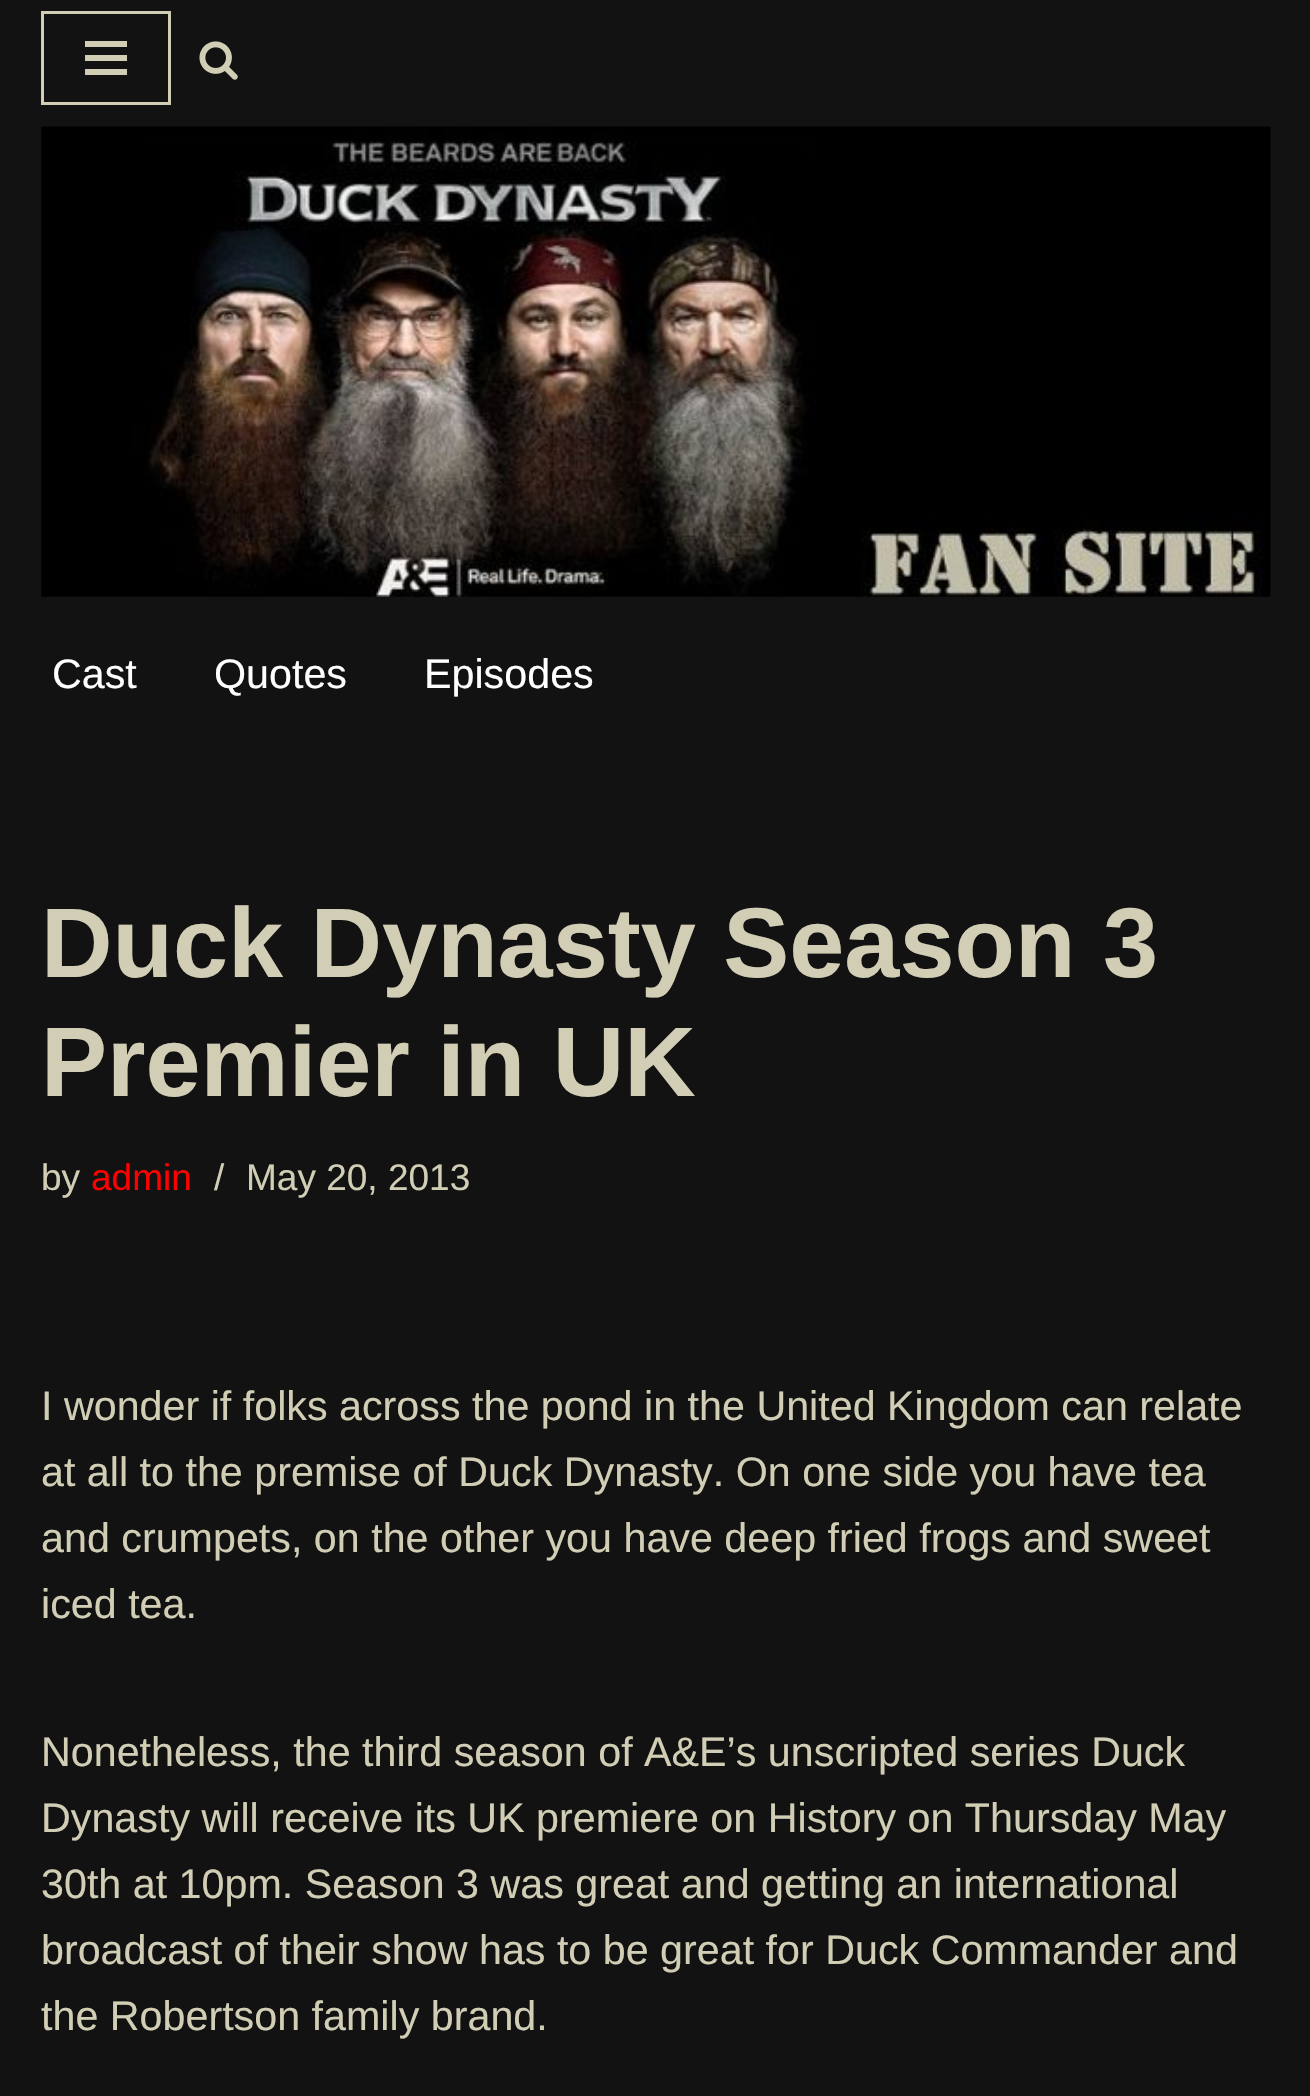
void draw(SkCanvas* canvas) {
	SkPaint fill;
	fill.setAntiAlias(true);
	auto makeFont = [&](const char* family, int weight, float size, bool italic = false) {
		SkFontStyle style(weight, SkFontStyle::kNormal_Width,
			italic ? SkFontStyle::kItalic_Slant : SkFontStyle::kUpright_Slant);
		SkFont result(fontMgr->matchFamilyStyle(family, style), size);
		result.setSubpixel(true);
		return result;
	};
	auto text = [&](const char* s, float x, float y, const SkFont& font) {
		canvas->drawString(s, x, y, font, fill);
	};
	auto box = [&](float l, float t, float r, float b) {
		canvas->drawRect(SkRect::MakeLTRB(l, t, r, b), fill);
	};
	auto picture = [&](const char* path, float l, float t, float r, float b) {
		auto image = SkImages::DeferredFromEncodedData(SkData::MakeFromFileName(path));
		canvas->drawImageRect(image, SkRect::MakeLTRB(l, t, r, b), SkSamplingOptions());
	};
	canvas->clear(0xFF121212);
	fill.setStyle(SkPaint::kStroke_Style);
	fill.setStrokeWidth(3);
	fill.setColor(0xFFD2CEB5);
	canvas->drawRect(SkRect::MakeLTRB(42.5f, 12.5f, 169.5f, 103.5f), fill);
	fill.setStyle(SkPaint::kFill_Style);
	box(85, 41, 127, 47);
	box(85, 55, 127, 61);
	box(85, 69, 127, 75);
	picture("image0.png", 199, 41, 238, 80);
	picture("image1.png", 41, 126, 1271, 597);
	auto font1 = makeFont("Liberation Sans", 400, 41.25f);
	fill.setColor(0xFFFFFFFF);
	text("Cast", 52, 688, font1);
	text("Quotes", 214, 688, font1);
	text("Episodes", 424, 688, font1);
	auto font2 = makeFont("Liberation Sans", 700, 99);
	fill.setColor(0xFFD2CEB5);
	text("Duck Dynasty Season 3", 41, 977, font2);
	text("Premier in UK", 41, 1096, font2);
	auto font3 = makeFont("Liberation Sans", 400, 37);
	text("by", 41, 1190, font3);
	fill.setColor(0xFFFF0000);
	text("admin", 91, 1190, font3);
	fill.setColor(0xFFD2CEB5);
	text("/", 214, 1190, font3);
	text("May 20, 2013", 246, 1190, font3);
	text("I wonder if folks across the pond in the United Kingdom can relate", 41, 1420, font1);
	text("at all to the premise of Duck Dynasty. On one side you have tea", 41, 1486, font1);
	text("and crumpets, on the other you have deep fried frogs and sweet", 41, 1552, font1);
	text("iced tea.", 41, 1618, font1);
	text("Nonetheless, the third season of A&E’s unscripted series Duck", 41, 1766, font1);
	text("Dynasty will receive its UK premiere on History on Thursday May", 41, 1832, font1);
	text("30th at 10pm. Season 3 was great and getting an international", 41, 1898, font1);
	text("broadcast of their show has to be great for Duck Commander and", 41, 1964, font1);
	text("the Robertson family brand.", 41, 2030, font1);
}
